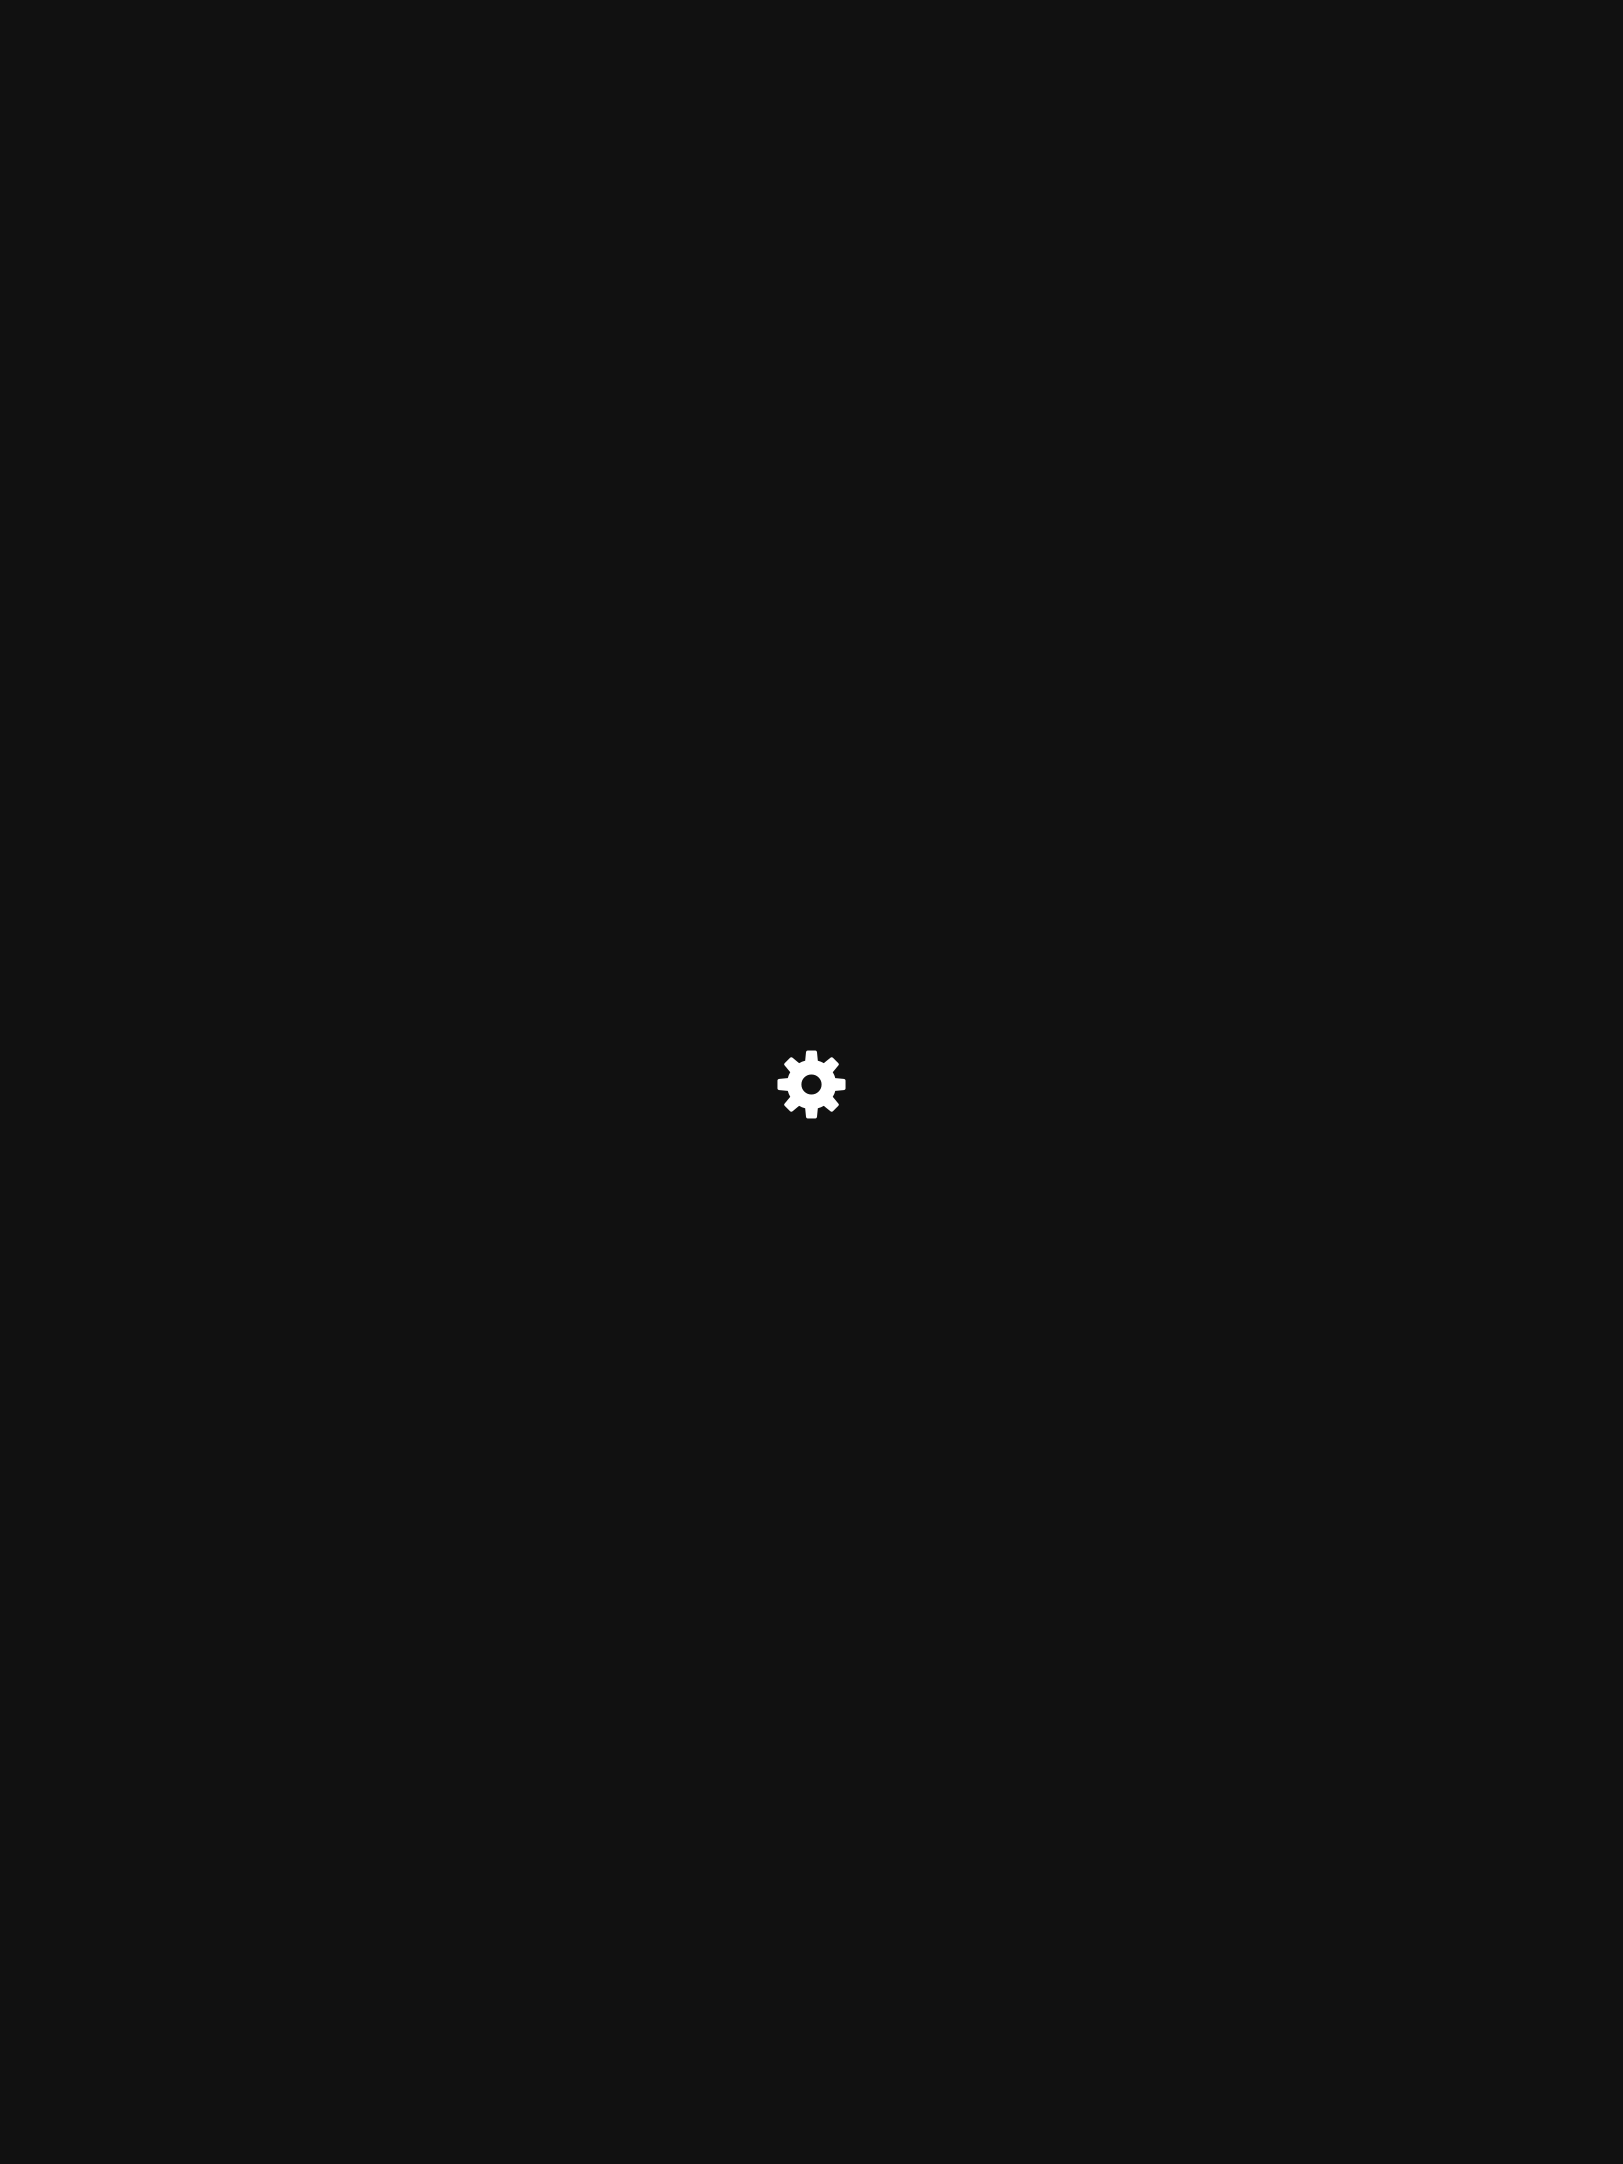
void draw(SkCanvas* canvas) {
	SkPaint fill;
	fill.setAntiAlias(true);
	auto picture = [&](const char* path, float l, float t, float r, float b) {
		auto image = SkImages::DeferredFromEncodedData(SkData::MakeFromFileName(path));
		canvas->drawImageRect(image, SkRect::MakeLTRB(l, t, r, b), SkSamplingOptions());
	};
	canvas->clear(0xFF111111);
	picture("image0.png", 777, 1050, 846, 1119);
}
